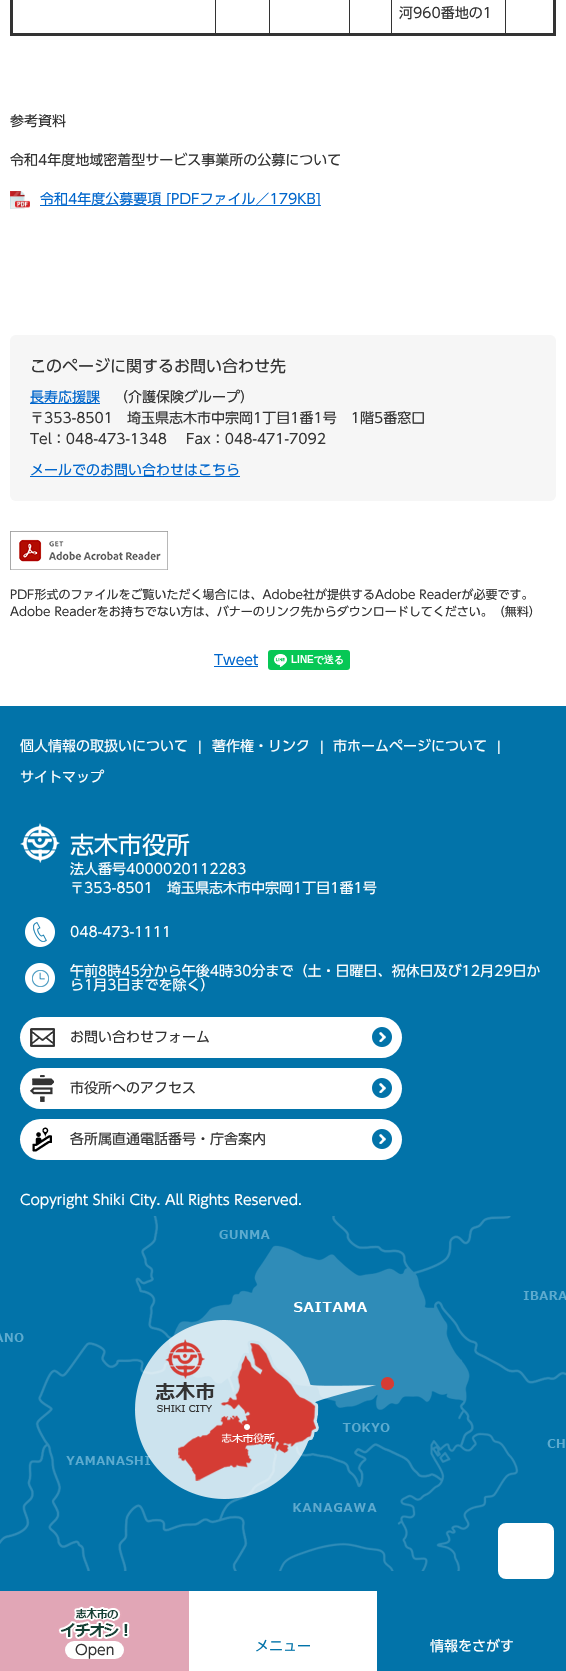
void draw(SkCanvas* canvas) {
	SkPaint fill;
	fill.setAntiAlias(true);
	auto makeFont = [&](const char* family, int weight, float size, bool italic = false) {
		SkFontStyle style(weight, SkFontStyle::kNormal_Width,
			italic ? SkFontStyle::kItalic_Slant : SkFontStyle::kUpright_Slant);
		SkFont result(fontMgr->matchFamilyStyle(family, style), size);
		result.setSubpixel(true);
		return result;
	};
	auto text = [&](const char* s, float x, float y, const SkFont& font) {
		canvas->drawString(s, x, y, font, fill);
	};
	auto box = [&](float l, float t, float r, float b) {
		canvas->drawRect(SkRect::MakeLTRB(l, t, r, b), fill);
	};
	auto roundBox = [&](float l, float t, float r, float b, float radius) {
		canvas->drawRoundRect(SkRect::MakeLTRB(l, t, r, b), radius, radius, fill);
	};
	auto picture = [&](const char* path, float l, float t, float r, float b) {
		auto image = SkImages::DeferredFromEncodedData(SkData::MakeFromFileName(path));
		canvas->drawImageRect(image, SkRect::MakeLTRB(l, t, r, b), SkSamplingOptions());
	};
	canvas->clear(0xFFFFFFFF);
	fill.setColor(0xFF333333);
	box(553, 0, 556, 36);
	box(215, 0, 216, 35);
	box(269, 0, 270, 35);
	box(349, 0, 350, 35);
	box(391, 0, 392, 35);
	box(505, 0, 506, 35);
	box(10, 33, 556, 36);
	box(10, 0, 13, 36);
	picture("image0.png", 10, 191, 30, 209);
	fill.setColor(0xFF0066CC);
	box(40, 205, 321, 206);
	fill.setColor(0xFFF6F6F6);
	roundBox(10, 335, 556, 501, 6);
	fill.setColor(0xFF0066CC);
	box(30, 403, 100, 404);
	box(30, 476, 240, 477);
	picture("image1.png", 10, 531, 168, 570);
	box(214, 666, 258, 667);
	picture("image2.png", 268, 650, 350, 670);
	fill.setColor(0xFF0273A9);
	box(0, 706, 566, 1591);
	picture("image3.png", 0, 1216, 566, 1571);
	fill.setColor(0xFFFFFFFF);
	canvas->drawRoundRect(SkRect::MakeLTRB(497, 1522, 555, 1580), 9, 9, fill);
	fill.setStyle(SkPaint::kStroke_Style);
	fill.setStrokeWidth(2);
	fill.setColor(0xFF0273A9);
	canvas->drawRoundRect(SkRect::MakeLTRB(497, 1522, 555, 1580), 9, 9, fill);
	picture("image4.png", 20, 823, 60, 863);
	picture("image5.png", 25, 917, 55, 947);
	picture("image6.png", 25, 963, 55, 993);
	fill.setStyle(SkPaint::kFill_Style);
	fill.setColor(0xFFFFFFFF);
	roundBox(20, 1017, 402, 1058, 20.5f);
	picture("image7.png", 30, 1027, 392, 1047);
	roundBox(20, 1068, 402, 1109, 20.5f);
	picture("image8.png", 30, 1075, 392, 1102);
	roundBox(20, 1119, 402, 1160, 20.5f);
	picture("image9.png", 32, 1127, 392, 1152);
	fill.setColor(0xFFE1A6B6);
	box(0, 1591, 189, 1671);
	picture("image10.png", 58, 1606, 130, 1639);
	fill.setColor(0xFFFFFFFF);
	roundBox(65, 1641, 124, 1659, 9);
	fill.setColor(0xFF0273A9);
	box(377, 1591, 566, 1671);
	auto font1 = makeFont("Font", 400, 14);
	fill.setColor(0xFF333333);
	text("河960番地の1", 399, 18, font1);
	text("参考資料", 10, 126, font1);
	text("令和4年度地域密着型サービス事業所の公募について", 10, 165, font1);
	fill.setColor(0xFF0066CC);
	text("令和4年度公募要項 [PDFファイル／179KB]", 40, 204, font1);
	auto font2 = makeFont("Font", 400, 16);
	fill.setColor(0xFF333333);
	text("このページに関するお問い合わせ先", 30, 372, font2);
	fill.setColor(0xFF0066CC);
	text("長寿応援課", 30, 402, font1);
	fill.setColor(0xFF333333);
	text("（介護保険グループ）", 114, 402, font1);
	text("〒353-8501", 30, 423, font1);
	text("埼玉県志木市中宗岡1丁目1番1号　1階5番窓口", 127, 423, font1);
	text("Tel：048-473-1348", 30, 444, font1);
	text("Fax：048-471-7092", 186, 444, font1);
	fill.setColor(0xFF0066CC);
	text("メールでのお問い合わせはこちら", 30, 475, font1);
	auto font3 = makeFont("Font", 400, 12);
	fill.setColor(0xFF333333);
	text("PDF形式のファイルをご覧いただく場合には、Adobe社が提供するAdobe Readerが必要です。", 10, 599, font3);
	text("Adobe Readerをお持ちでない方は、バナーのリンク先からダウンロードしてください。（無料）", 10, 616, font3);
	fill.setColor(0xFF0066CC);
	text("Tweet", 214, 665, font1);
	fill.setColor(0xFFFFFFFF);
	text("個人情報の取扱いについて", 20, 751, font1);
	auto font4 = makeFont("Liberation Sans", 400, 14);
	text("|", 198, 751, font4);
	text("著作権・リンク", 212, 751, font1);
	text("|", 320, 751, font4);
	text("市ホームページについて", 333, 751, font1);
	text("|", 497, 751, font4);
	text("サイトマップ", 20, 782, font1);
	auto font5 = makeFont("Font", 400, 24);
	text("志木市役所", 70, 854, font5);
	text("法人番号4000020112283", 70, 874, font1);
	text("〒353-8501　埼玉県志木市中宗岡1丁目1番1号", 70, 893, font1);
	text("048-473-1111", 70, 937, font1);
	text("午前8時45分から午後4時30分まで（土・日曜日、祝休日及び12月29日か", 70, 976, font1);
	text("ら1月3日までを除く）", 70, 990, font1);
	fill.setColor(0xFF333333);
	text("お問い合わせフォーム", 70, 1042, font1);
	text("市役所へのアクセス", 70, 1093, font1);
	text("各所属直通電話番号・庁舎案内", 70, 1144, font1);
	fill.setColor(0xFFFFFFFF);
	text("Copyright Shiki City. All Rights Reserved.", 20, 1205, font1);
	fill.setColor(0xFF333333);
	text("Open", 75, 1655, font1);
	fill.setColor(0xFF0273A9);
	text("メニュー", 255, 1651, font1);
	fill.setColor(0xFFFFFFFF);
	text("情報をさがす", 430, 1651, font1);
}
